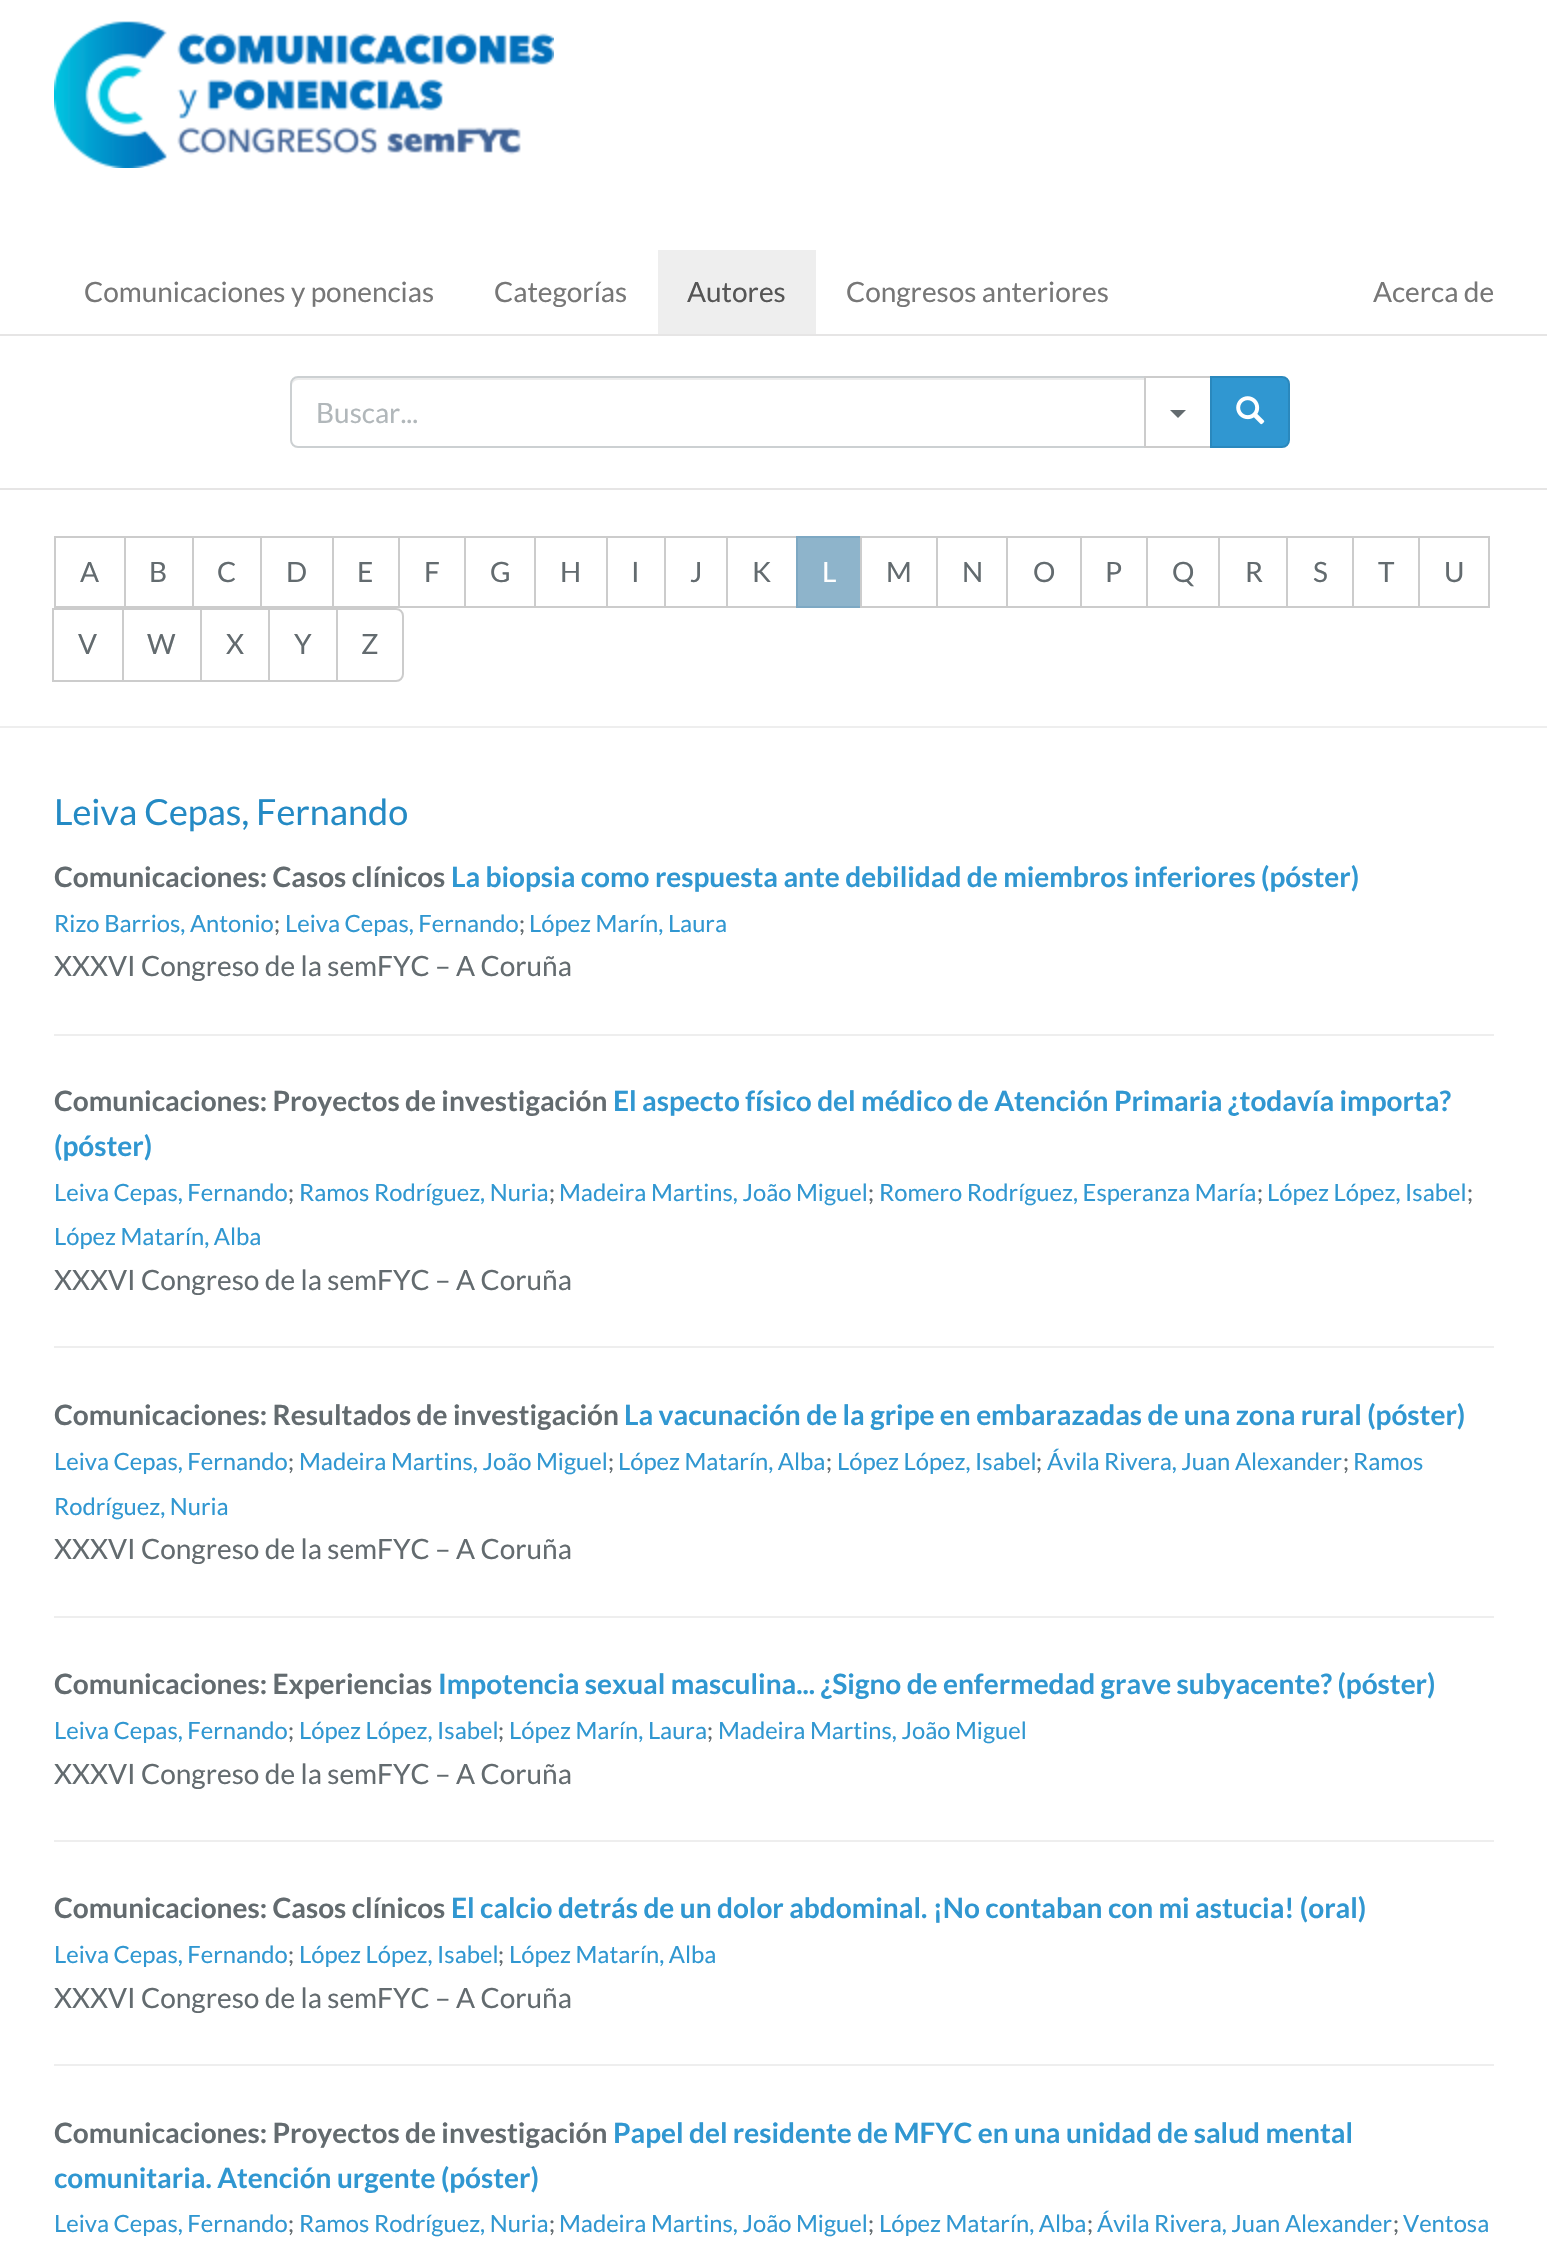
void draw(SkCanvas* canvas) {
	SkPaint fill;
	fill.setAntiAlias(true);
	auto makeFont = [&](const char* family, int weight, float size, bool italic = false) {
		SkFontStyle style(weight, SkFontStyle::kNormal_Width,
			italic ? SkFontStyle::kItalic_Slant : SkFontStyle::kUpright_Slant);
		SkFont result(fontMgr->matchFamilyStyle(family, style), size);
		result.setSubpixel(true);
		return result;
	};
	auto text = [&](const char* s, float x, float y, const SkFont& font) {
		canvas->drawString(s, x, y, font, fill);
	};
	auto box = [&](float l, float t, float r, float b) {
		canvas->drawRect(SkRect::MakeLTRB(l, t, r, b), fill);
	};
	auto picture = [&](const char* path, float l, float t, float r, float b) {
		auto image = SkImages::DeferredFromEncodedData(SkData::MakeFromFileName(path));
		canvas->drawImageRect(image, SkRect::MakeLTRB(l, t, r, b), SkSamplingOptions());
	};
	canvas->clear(0xFFFFFFFF);
	fill.setColor(0xFFE6E5E5);
	box(0, 334, 1547, 336);
	picture("image0.png", 54, 21, 554, 168);
	fill.setColor(0xFFEEEEEE);
	box(658, 250, 816, 334);
	fill.setColor(0xFFE6E5E5);
	box(0, 488, 1547, 490);
	fill.setColor(0xFFECECEC);
	canvas->drawPath(SkPathBuilder().moveTo(298, 380).lineTo(1146, 380).lineTo(1146, 378).lineTo(298, 378).cubicTo(293, 378, 292, 382, 292, 386).cubicTo(292, 383, 295, 380, 298, 380).close().detach(), fill);
	fill.setStyle(SkPaint::kStroke_Style);
	fill.setStrokeWidth(2);
	fill.setColor(0xFFCCD0D2);
	canvas->drawPath(SkPathBuilder().moveTo(298, 377).lineTo(1147, 377).lineTo(1147, 447).lineTo(298, 447).cubicTo(294, 447, 291, 444, 291, 440).lineTo(291, 384).cubicTo(291, 380, 294, 377, 298, 377).close().detach(), fill);
	fill.setStyle(SkPaint::kFill_Style);
	fill.setColor(0xFFFFFFFF);
	box(1146, 378, 1148, 446);
	fill.setStyle(SkPaint::kStroke_Style);
	fill.setColor(0xFFCCCCCC);
	canvas->drawRect(SkRect::MakeLTRB(1145, 377, 1211, 447), fill);
	fill.setStyle(SkPaint::kFill_Style);
	fill.setColor(0xFF636B6F);
	canvas->drawPath(SkPathBuilder().moveTo(1170, 410).lineTo(1186, 410).lineTo(1178, 418).close().detach(), fill);
	fill.setColor(0xFF3097D1);
	canvas->drawPath(SkPathBuilder().moveTo(1211, 377).lineTo(1282, 377).cubicTo(1286, 377, 1289, 380, 1289, 384).lineTo(1289, 440).cubicTo(1289, 444, 1286, 447, 1282, 447).lineTo(1211, 447).close().detach(), fill);
	fill.setStyle(SkPaint::kStroke_Style);
	fill.setColor(0xFF2A88BD);
	canvas->drawPath(SkPathBuilder().moveTo(1211, 377).lineTo(1282, 377).cubicTo(1286, 377, 1289, 380, 1289, 384).lineTo(1289, 440).cubicTo(1289, 444, 1286, 447, 1282, 447).lineTo(1211, 447).close().detach(), fill);
	picture("image1.png", 1236, 396, 1265, 425);
	fill.setColor(0xFFCCCCCC);
	canvas->drawRect(SkRect::MakeLTRB(55, 537, 125, 607), fill);
	canvas->drawRect(SkRect::MakeLTRB(125, 537, 193, 607), fill);
	canvas->drawRect(SkRect::MakeLTRB(193, 537, 261, 607), fill);
	canvas->drawRect(SkRect::MakeLTRB(261, 537, 333, 607), fill);
	canvas->drawRect(SkRect::MakeLTRB(333, 537, 399, 607), fill);
	canvas->drawRect(SkRect::MakeLTRB(399, 537, 465, 607), fill);
	canvas->drawRect(SkRect::MakeLTRB(465, 537, 535, 607), fill);
	canvas->drawRect(SkRect::MakeLTRB(535, 537, 607, 607), fill);
	canvas->drawRect(SkRect::MakeLTRB(607, 537, 665, 607), fill);
	canvas->drawRect(SkRect::MakeLTRB(665, 537, 727, 607), fill);
	canvas->drawRect(SkRect::MakeLTRB(727, 537, 797, 607), fill);
	fill.setStyle(SkPaint::kFill_Style);
	fill.setColor(0xFF8EB4CB);
	canvas->drawRect(SkRect::MakeLTRB(797, 537, 861, 607), fill);
	fill.setStyle(SkPaint::kStroke_Style);
	fill.setColor(0xFF7DA8C3);
	canvas->drawRect(SkRect::MakeLTRB(797, 537, 861, 607), fill);
	fill.setColor(0xFFCCCCCC);
	canvas->drawRect(SkRect::MakeLTRB(861, 537, 937, 607), fill);
	canvas->drawRect(SkRect::MakeLTRB(937, 537, 1007, 607), fill);
	canvas->drawRect(SkRect::MakeLTRB(1007, 537, 1081, 607), fill);
	canvas->drawRect(SkRect::MakeLTRB(1081, 537, 1147, 607), fill);
	canvas->drawRect(SkRect::MakeLTRB(1147, 537, 1219, 607), fill);
	canvas->drawRect(SkRect::MakeLTRB(1219, 537, 1287, 607), fill);
	canvas->drawRect(SkRect::MakeLTRB(1287, 537, 1353, 607), fill);
	canvas->drawRect(SkRect::MakeLTRB(1353, 537, 1419, 607), fill);
	canvas->drawRect(SkRect::MakeLTRB(1419, 537, 1489, 607), fill);
	canvas->drawRect(SkRect::MakeLTRB(53, 609, 123, 681), fill);
	canvas->drawRect(SkRect::MakeLTRB(123, 609, 201, 681), fill);
	canvas->drawRect(SkRect::MakeLTRB(201, 609, 269, 681), fill);
	canvas->drawRect(SkRect::MakeLTRB(269, 609, 337, 681), fill);
	fill.setStyle(SkPaint::kFill_Style);
	fill.setColor(0xFFFFFFFF);
	canvas->drawPath(SkPathBuilder().moveTo(337, 609).lineTo(396, 609).cubicTo(400, 609, 403, 612, 403, 616).lineTo(403, 674).cubicTo(403, 678, 400, 681, 396, 681).lineTo(337, 681).close().detach(), fill);
	fill.setStyle(SkPaint::kStroke_Style);
	fill.setColor(0xFFCCCCCC);
	canvas->drawPath(SkPathBuilder().moveTo(337, 609).lineTo(396, 609).cubicTo(400, 609, 403, 612, 403, 616).lineTo(403, 674).cubicTo(403, 678, 400, 681, 396, 681).lineTo(337, 681).close().detach(), fill);
	fill.setStyle(SkPaint::kFill_Style);
	fill.setColor(0xFFEEEEEE);
	box(0, 726, 1547, 728);
	box(54, 1034, 1494, 1036);
	box(54, 1346, 1494, 1348);
	box(54, 1616, 1494, 1618);
	box(54, 1840, 1494, 1842);
	box(54, 2064, 1494, 2066);
	auto font1 = makeFont("Lato", 400, 28);
	fill.setColor(0xFF777777);
	text("Comunicaciones y ponencias", 84, 302, font1);
	text("Categorías", 494, 302, font1);
	fill.setColor(0xFF555555);
	text("Autores", 687, 302, font1);
	fill.setColor(0xFF777777);
	text("Congresos anteriores", 846, 302, font1);
	text("Acerca de", 1373, 302, font1);
	fill.setColor(0xFFB1B7BA);
	text("Buscar...", 316, 423, font1);
	fill.setColor(0xFF636B6F);
	text("A", 80, 582, font1);
	text("B", 149, 582, font1);
	text("C", 217, 582, font1);
	text("D", 286, 582, font1);
	text("E", 357, 582, font1);
	text("F", 424, 582, font1);
	text("G", 490, 582, font1);
	text("H", 560, 582, font1);
	text("I", 631, 582, font1);
	text("J", 690, 582, font1);
	text("K", 752, 582, font1);
	fill.setColor(0xFFFFFFFF);
	text("L", 822, 582, font1);
	fill.setColor(0xFF636B6F);
	text("M", 886, 582, font1);
	text("N", 962, 582, font1);
	text("O", 1033, 582, font1);
	text("P", 1105, 582, font1);
	text("Q", 1172, 582, font1);
	text("R", 1245, 582, font1);
	text("S", 1313, 582, font1);
	text("T", 1378, 582, font1);
	text("U", 1444, 582, font1);
	text("V", 78, 654, font1);
	text("W", 147, 654, font1);
	text("X", 226, 654, font1);
	text("Y", 294, 654, font1);
	text("Z", 361, 654, font1);
	auto font2 = makeFont("Lato", 400, 36);
	fill.setColor(0xFF248AC4);
	text("Leiva Cepas, Fernando", 54, 825, font2);
	auto font3 = makeFont("Lato", 700, 28);
	fill.setColor(0xFF636B6F);
	text("Comunicaciones: Casos clínicos", 54, 887, font3);
	fill.setColor(0xFF3097D1);
	text("La biopsia como respuesta ante debilidad de miembros inferiores (póster)", 451, 887, font3);
	auto font4 = makeFont("Lato", 400, 23.75f);
	text("Rizo Barrios, Antonio", 54, 932, font4);
	fill.setColor(0xFF636B6F);
	text(";", 274, 932, font4);
	fill.setColor(0xFF3097D1);
	text("Leiva Cepas, Fernando", 285, 932, font4);
	fill.setColor(0xFF636B6F);
	text(";", 519, 932, font4);
	fill.setColor(0xFF3097D1);
	text("López Marín, Laura", 529, 932, font4);
	fill.setColor(0xFF636B6F);
	text("XXXVI Congreso de la semFYC – A Coruña", 54, 976, font1);
	text("Comunicaciones: Proyectos de investigación", 54, 1111, font3);
	fill.setColor(0xFF3097D1);
	text("El aspecto físico del médico de Atención Primaria ¿todavía importa?", 613, 1111, font3);
	text("(póster)", 54, 1156, font3);
	text("Leiva Cepas, Fernando", 54, 1201, font4);
	fill.setColor(0xFF636B6F);
	text(";", 288, 1201, font4);
	fill.setColor(0xFF3097D1);
	text("Ramos Rodríguez, Nuria", 299, 1201, font4);
	fill.setColor(0xFF636B6F);
	text(";", 549, 1201, font4);
	fill.setColor(0xFF3097D1);
	text("Madeira Martins, João Miguel", 559, 1201, font4);
	fill.setColor(0xFF636B6F);
	text(";", 868, 1201, font4);
	fill.setColor(0xFF3097D1);
	text("Romero Rodríguez, Esperanza María", 879, 1201, font4);
	fill.setColor(0xFF636B6F);
	text(";", 1257, 1201, font4);
	fill.setColor(0xFF3097D1);
	text("López López, Isabel", 1267, 1201, font4);
	fill.setColor(0xFF636B6F);
	text(";", 1467, 1201, font4);
	fill.setColor(0xFF3097D1);
	text("López Matarín, Alba", 54, 1245, font4);
	fill.setColor(0xFF636B6F);
	text("XXXVI Congreso de la semFYC – A Coruña", 54, 1290, font1);
	text("Comunicaciones: Resultados de investigación", 54, 1425, font3);
	fill.setColor(0xFF3097D1);
	text("La vacunación de la gripe en embarazadas de una zona rural (póster)", 624, 1425, font3);
	text("Leiva Cepas, Fernando", 54, 1470, font4);
	fill.setColor(0xFF636B6F);
	text(";", 288, 1470, font4);
	fill.setColor(0xFF3097D1);
	text("Madeira Martins, João Miguel", 299, 1470, font4);
	fill.setColor(0xFF636B6F);
	text(";", 608, 1470, font4);
	fill.setColor(0xFF3097D1);
	text("López Matarín, Alba", 618, 1470, font4);
	fill.setColor(0xFF636B6F);
	text(";", 826, 1470, font4);
	fill.setColor(0xFF3097D1);
	text("López López, Isabel", 837, 1470, font4);
	fill.setColor(0xFF636B6F);
	text(";", 1036, 1470, font4);
	fill.setColor(0xFF3097D1);
	text("Ávila Rivera, Juan Alexander", 1047, 1470, font4);
	fill.setColor(0xFF636B6F);
	text(";", 1343, 1470, font4);
	fill.setColor(0xFF3097D1);
	text("Ramos", 1353, 1470, font4);
	text("Rodríguez, Nuria", 54, 1515, font4);
	fill.setColor(0xFF636B6F);
	text("XXXVI Congreso de la semFYC – A Coruña", 54, 1559, font1);
	text("Comunicaciones: Experiencias", 54, 1694, font3);
	fill.setColor(0xFF3097D1);
	text("Impotencia sexual masculina... ¿Signo de enfermedad grave subyacente? (póster)", 438, 1694, font3);
	text("Leiva Cepas, Fernando", 54, 1739, font4);
	fill.setColor(0xFF636B6F);
	text(";", 288, 1739, font4);
	fill.setColor(0xFF3097D1);
	text("López López, Isabel", 299, 1739, font4);
	fill.setColor(0xFF636B6F);
	text(";", 498, 1739, font4);
	fill.setColor(0xFF3097D1);
	text("López Marín, Laura", 509, 1739, font4);
	fill.setColor(0xFF636B6F);
	text(";", 707, 1739, font4);
	fill.setColor(0xFF3097D1);
	text("Madeira Martins, João Miguel", 718, 1739, font4);
	fill.setColor(0xFF636B6F);
	text("XXXVI Congreso de la semFYC – A Coruña", 54, 1784, font1);
	text("Comunicaciones: Casos clínicos", 54, 1918, font3);
	fill.setColor(0xFF3097D1);
	text("El calcio detrás de un dolor abdominal. ¡No contaban con mi astucia! (oral)", 451, 1918, font3);
	text("Leiva Cepas, Fernando", 54, 1963, font4);
	fill.setColor(0xFF636B6F);
	text(";", 288, 1963, font4);
	fill.setColor(0xFF3097D1);
	text("López López, Isabel", 299, 1963, font4);
	fill.setColor(0xFF636B6F);
	text(";", 498, 1963, font4);
	fill.setColor(0xFF3097D1);
	text("López Matarín, Alba", 509, 1963, font4);
	fill.setColor(0xFF636B6F);
	text("XXXVI Congreso de la semFYC – A Coruña", 54, 2008, font1);
	text("Comunicaciones: Proyectos de investigación", 54, 2143, font3);
	fill.setColor(0xFF3097D1);
	text("Papel del residente de MFYC en una unidad de salud mental", 613, 2143, font3);
	text("comunitaria. Atención urgente (póster)", 54, 2188, font3);
	text("Leiva Cepas, Fernando", 54, 2232, font4);
	fill.setColor(0xFF636B6F);
	text(";", 288, 2232, font4);
	fill.setColor(0xFF3097D1);
	text("Ramos Rodríguez, Nuria", 299, 2232, font4);
	fill.setColor(0xFF636B6F);
	text(";", 549, 2232, font4);
	fill.setColor(0xFF3097D1);
	text("Madeira Martins, João Miguel", 559, 2232, font4);
	fill.setColor(0xFF636B6F);
	text(";", 868, 2232, font4);
	fill.setColor(0xFF3097D1);
	text("López Matarín, Alba", 879, 2232, font4);
	fill.setColor(0xFF636B6F);
	text(";", 1087, 2232, font4);
	fill.setColor(0xFF3097D1);
	text("Ávila Rivera, Juan Alexander", 1097, 2232, font4);
	fill.setColor(0xFF636B6F);
	text(";", 1393, 2232, font4);
	fill.setColor(0xFF3097D1);
	text("Ventosa", 1403, 2232, font4);
}
